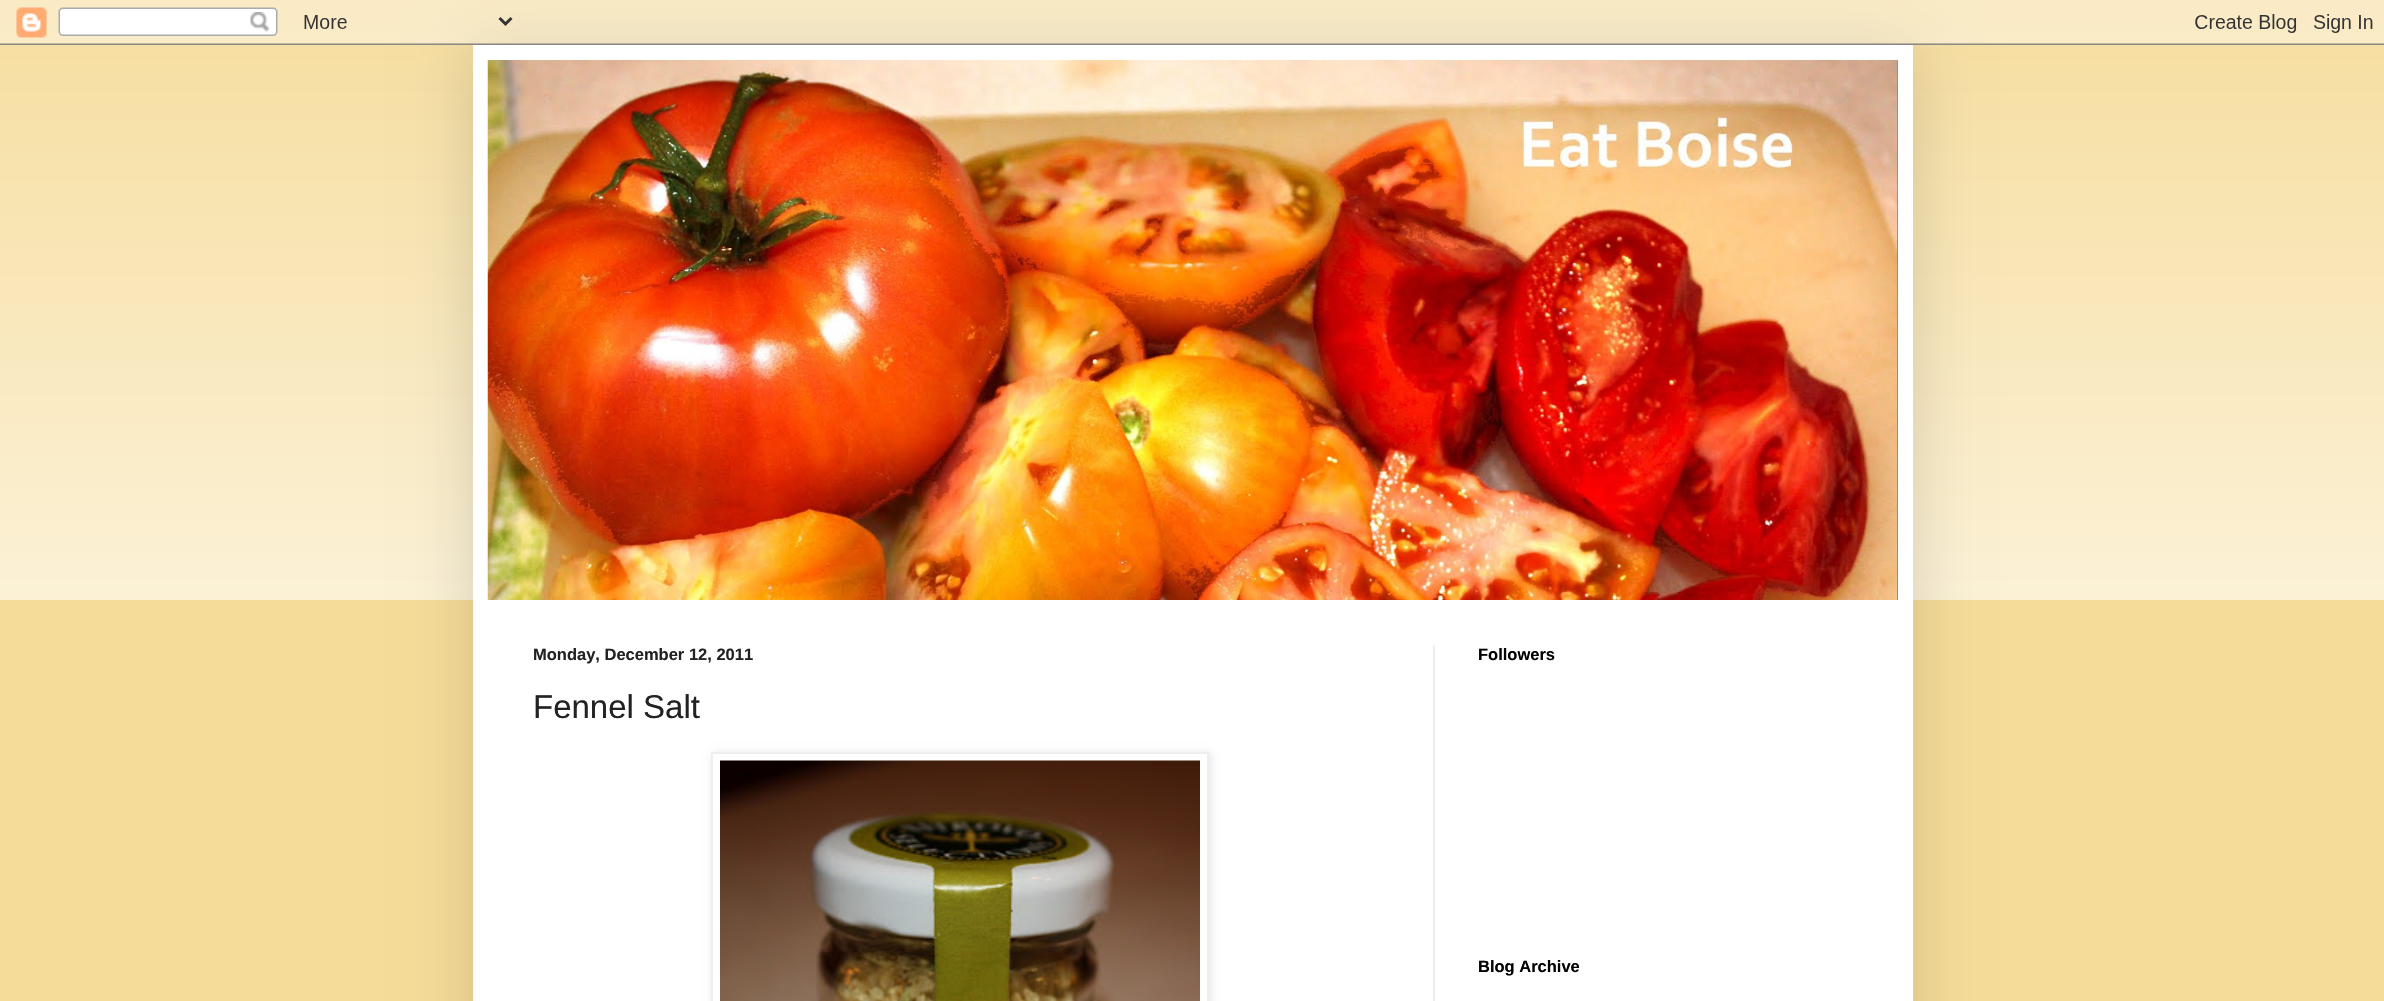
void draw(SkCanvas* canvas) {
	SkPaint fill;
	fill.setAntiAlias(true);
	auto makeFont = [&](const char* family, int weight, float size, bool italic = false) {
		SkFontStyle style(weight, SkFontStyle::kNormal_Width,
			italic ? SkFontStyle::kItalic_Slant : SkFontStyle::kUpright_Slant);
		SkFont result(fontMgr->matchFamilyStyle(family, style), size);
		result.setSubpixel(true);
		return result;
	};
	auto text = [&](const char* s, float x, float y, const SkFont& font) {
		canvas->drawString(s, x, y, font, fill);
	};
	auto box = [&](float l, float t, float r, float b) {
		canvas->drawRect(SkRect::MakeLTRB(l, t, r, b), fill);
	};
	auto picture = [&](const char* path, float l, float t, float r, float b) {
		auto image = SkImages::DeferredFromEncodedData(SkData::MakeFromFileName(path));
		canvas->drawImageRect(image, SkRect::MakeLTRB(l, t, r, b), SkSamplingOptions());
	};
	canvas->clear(0xFFF6DC99);
	picture("image0.png", 0, 0, 2384, 600);
	fill.setColor(0x26000000);
	fill.setMaskFilter(SkMaskFilter::MakeBlur(kNormal_SkBlurStyle, 30));
	canvas->drawRect(SkRect::MakeLTRB(473, 45, 1913, 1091), fill);
	fill.setMaskFilter(nullptr);
	picture("image1.png", 0, 0, 2384, 45);
	fill.setColor(0xFFFFFFFF);
	box(473, 45, 1913, 1001);
	fill.setColor(0xFFCC6611);
	box(1897, 60, 1898, 600);
	picture("image2.png", 1897, 60, 1898, 236);
	picture("image3.png", 487, 60, 1898, 600);
	fill.setColor(0xFFEEEEEE);
	box(1433, 645, 1435, 1001);
	canvas->save();
	canvas->clipPath(SkPathBuilder(SkPathFillType::kEvenOdd).moveTo(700, 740).lineTo(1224, 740).lineTo(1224, 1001).lineTo(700, 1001).close().moveTo(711, 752).lineTo(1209, 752).lineTo(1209, 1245).lineTo(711, 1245).close().detach(), true);
	fill.setColor(0x1A000000);
	fill.setMaskFilter(SkMaskFilter::MakeBlur(kNormal_SkBlurStyle, 4));
	canvas->drawRect(SkRect::MakeLTRB(713, 753, 1211, 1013), fill);
	fill.setMaskFilter(nullptr);
	canvas->restore();
	fill.setStyle(SkPaint::kStroke_Style);
	fill.setStrokeWidth(2);
	fill.setColor(0xFFEEEEEE);
	canvas->drawRect(SkRect::MakeLTRB(712, 753, 1208, 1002), fill);
	picture("image4.png", 720, 760, 1200, 1001);
	auto font1 = makeFont("Liberation Sans", 700, 16.5f);
	fill.setStyle(SkPaint::kFill_Style);
	fill.setColor(0xFF222222);
	text("Monday, December 12, 2011", 533, 660, font1);
	auto font2 = makeFont("Liberation Sans", 400, 33);
	text("Fennel Salt", 533, 718, font2);
	fill.setColor(0xFF000000);
	text("Followers", 1478, 660, font1);
	text("Blog Archive", 1478, 972, font1);
}
